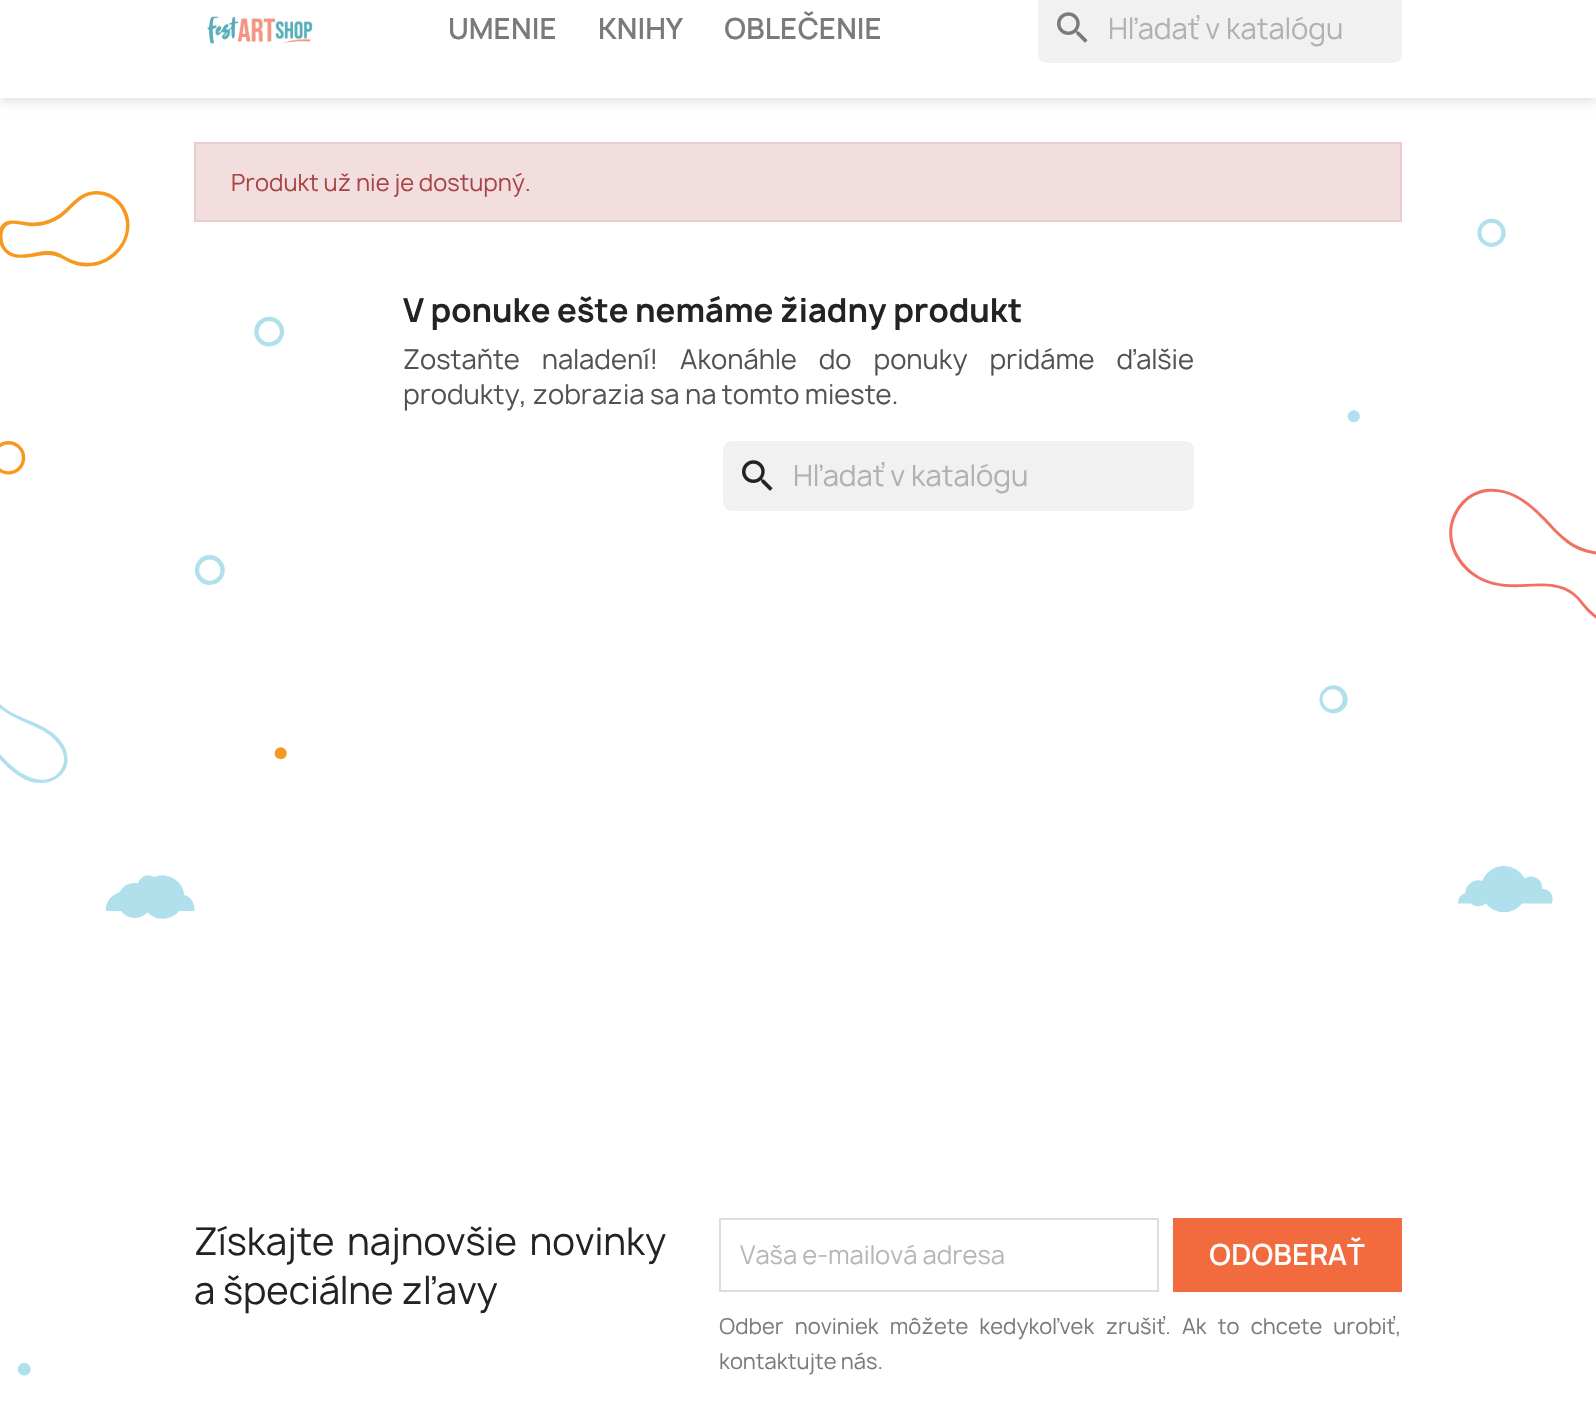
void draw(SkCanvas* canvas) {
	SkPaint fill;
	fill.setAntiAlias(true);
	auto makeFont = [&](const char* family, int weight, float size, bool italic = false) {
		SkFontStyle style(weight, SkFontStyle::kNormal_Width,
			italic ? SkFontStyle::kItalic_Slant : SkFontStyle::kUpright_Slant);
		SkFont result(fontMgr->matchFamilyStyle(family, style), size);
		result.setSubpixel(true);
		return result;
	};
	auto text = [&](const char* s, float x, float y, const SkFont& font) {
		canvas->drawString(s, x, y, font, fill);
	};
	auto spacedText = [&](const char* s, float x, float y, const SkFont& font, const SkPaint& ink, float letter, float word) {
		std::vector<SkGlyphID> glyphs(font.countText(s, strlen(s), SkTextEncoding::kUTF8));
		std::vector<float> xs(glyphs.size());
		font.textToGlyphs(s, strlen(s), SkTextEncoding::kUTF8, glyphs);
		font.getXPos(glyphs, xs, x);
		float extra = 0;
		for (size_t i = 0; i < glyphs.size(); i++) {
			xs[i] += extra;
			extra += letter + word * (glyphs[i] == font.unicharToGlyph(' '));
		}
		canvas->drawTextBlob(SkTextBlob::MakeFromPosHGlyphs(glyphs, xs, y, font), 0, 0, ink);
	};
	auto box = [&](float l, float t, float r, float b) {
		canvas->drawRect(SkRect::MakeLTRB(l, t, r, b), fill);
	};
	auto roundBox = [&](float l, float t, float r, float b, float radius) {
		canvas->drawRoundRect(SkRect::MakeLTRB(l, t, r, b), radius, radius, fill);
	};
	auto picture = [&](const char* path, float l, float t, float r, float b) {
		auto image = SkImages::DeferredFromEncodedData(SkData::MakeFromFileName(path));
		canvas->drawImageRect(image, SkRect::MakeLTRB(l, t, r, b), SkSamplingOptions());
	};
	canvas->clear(0xFFFFFFFF);
	picture("image0.png", 0, 191, 1596, 1376);
	fill.setColor(0x1C000000);
	fill.setMaskFilter(SkMaskFilter::MakeBlur(kNormal_SkBlurStyle, 4.5f));
	canvas->drawRect(SkRect::MakeLTRB(0, -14, 1596, 102), fill);
	fill.setMaskFilter(nullptr);
	fill.setColor(0xFFFFFFFF);
	box(0, 0, 1596, 98);
	picture("image1.png", 207, 16, 313, 44);
	fill.setColor(0xFFF1F1F1);
	roundBox(1038, -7, 1402, 63, 9);
	picture("image2.png", 1057, 12, 1088, 43);
	fill.setColor(0xFFF2DEDE);
	canvas->drawRect(SkRect::MakeLTRB(195, 143, 1401, 221), fill);
	fill.setStyle(SkPaint::kStroke_Style);
	fill.setStrokeWidth(2);
	fill.setColor(0xFFEBCCCC);
	canvas->drawRect(SkRect::MakeLTRB(195, 143, 1401, 221), fill);
	fill.setStyle(SkPaint::kFill_Style);
	fill.setColor(0xFFF1F1F1);
	roundBox(723, 441, 1194, 511, 9);
	picture("image3.png", 742, 460, 773, 491);
	fill.setColor(0xFFFFFFFF);
	box(311, 1347, 1377, 1376);
	fill.setStyle(SkPaint::kStroke_Style);
	fill.setColor(0xFFDDDDDD);
	canvas->drawRect(SkRect::MakeLTRB(720, 1219, 1158, 1291), fill);
	fill.setStyle(SkPaint::kFill_Style);
	fill.setColor(0xFFF26B3E);
	box(1173, 1218, 1402, 1292);
	auto font1 = makeFont("Manrope", 600, 28);
	fill.setColor(0xFF7A7A7A);
	text("UMENIE", 448, 39, font1);
	text("KNIHY", 598, 39, font1);
	text("OBLEČENIE", 724, 39, font1);
	auto font2 = makeFont("Manrope", 400, 28);
	fill.setColor(0xFFB1B1B1);
	text("Hľadať v katalógu", 1108, 39, font2);
	auto font3 = makeFont("Manrope", 400, 22.75f);
	fill.setColor(0xFFA94442);
	text("Produkt už nie je dostupný.", 231, 191, font3);
	auto font4 = makeFont("Manrope", 700, 31.5f);
	fill.setColor(0xFF232323);
	text("V ponuke ešte nemáme žiadny produkt", 403, 322, font4);
	auto font5 = makeFont("Manrope", 400, 26.25f);
	fill.setColor(0xFF525252);
	spacedText("Zostaňte naladení! Akonáhle do ponuky pridáme ďalšie", 403, 369, font5, fill, 0, 16.5f);
	text("produkty, zobrazia sa na tomto mieste.", 403, 404, font5);
	fill.setColor(0xFFB1B1B1);
	text("Hľadať v katalógu", 793, 486, font2);
	auto font6 = makeFont("Manrope", 400, 36.75f);
	fill.setColor(0xFF232323);
	spacedText("Získajte najnovšie novinky", 194, 1255, font6, fill, 0, 5);
	text("a špeciálne zľavy", 194, 1304, font6);
	auto font7 = makeFont("Manrope", 400, 24.5f);
	fill.setColor(0xFFB7B7B7);
	text("Vaša e-mailová adresa", 740, 1264, font7);
	fill.setColor(0xFFFFFFFF);
	text("ODOBERAŤ", 1209, 1265, font1);
	auto font8 = makeFont("Manrope", 400, 21);
	fill.setColor(0xFF7A7A7A);
	spacedText("Odber noviniek môžete kedykoľvek zrušiť. Ak to chcete urobiť,", 719, 1334, font8, fill, 0, 6.75f);
	text("kontaktujte nás.", 719, 1369, font8);
}
